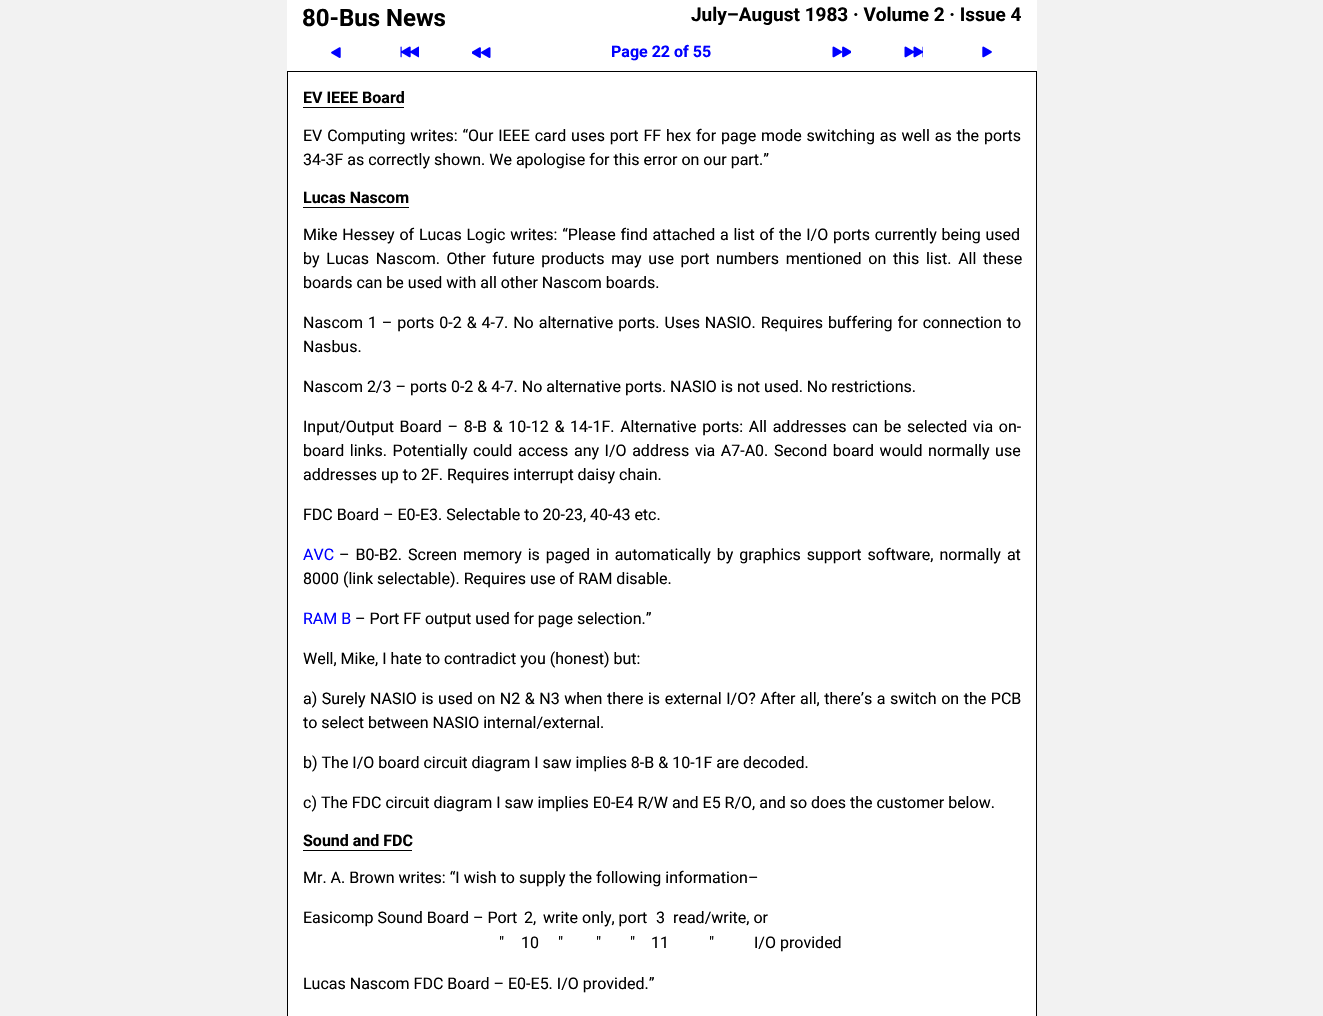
void draw(SkCanvas* canvas) {
	SkPaint fill;
	fill.setAntiAlias(true);
	auto makeFont = [&](const char* family, int weight, float size, bool italic = false) {
		SkFontStyle style(weight, SkFontStyle::kNormal_Width,
			italic ? SkFontStyle::kItalic_Slant : SkFontStyle::kUpright_Slant);
		SkFont result(fontMgr->matchFamilyStyle(family, style), size);
		result.setSubpixel(true);
		return result;
	};
	auto text = [&](const char* s, float x, float y, const SkFont& font) {
		canvas->drawString(s, x, y, font, fill);
	};
	auto spacedText = [&](const char* s, float x, float y, const SkFont& font, const SkPaint& ink, float letter, float word) {
		std::vector<SkGlyphID> glyphs(font.countText(s, strlen(s), SkTextEncoding::kUTF8));
		std::vector<float> xs(glyphs.size());
		font.textToGlyphs(s, strlen(s), SkTextEncoding::kUTF8, glyphs);
		font.getXPos(glyphs, xs, x);
		float extra = 0;
		for (size_t i = 0; i < glyphs.size(); i++) {
			xs[i] += extra;
			extra += letter + word * (glyphs[i] == font.unicharToGlyph(' '));
		}
		canvas->drawTextBlob(SkTextBlob::MakeFromPosHGlyphs(glyphs, xs, y, font), 0, 0, ink);
	};
	auto box = [&](float l, float t, float r, float b) {
		canvas->drawRect(SkRect::MakeLTRB(l, t, r, b), fill);
	};
	auto picture = [&](const char* path, float l, float t, float r, float b) {
		auto image = SkImages::DeferredFromEncodedData(SkData::MakeFromFileName(path));
		canvas->drawImageRect(image, SkRect::MakeLTRB(l, t, r, b), SkSamplingOptions());
	};
	canvas->clear(0xFFF2F2F2);
	fill.setColor(0xFFFFFFFF);
	box(287, 0, 1037, 1016);
	picture("image0.png", 331, 47, 341, 58);
	picture("image1.png", 400, 46, 419, 58);
	picture("image2.png", 472, 47, 491, 58);
	picture("image3.png", 832, 46, 851, 58);
	picture("image4.png", 904, 46, 923, 58);
	picture("image5.png", 982, 46, 992, 58);
	fill.setStyle(SkPaint::kStroke_Style);
	fill.setStrokeWidth(1);
	fill.setColor(0xFF000000);
	canvas->drawRect(SkRect::MakeLTRB(287.5f, 71.5f, 1036.5f, 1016.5f), fill);
	fill.setStyle(SkPaint::kFill_Style);
	box(303, 107, 404, 108);
	box(303, 207, 409, 208);
	box(303, 850, 412, 851);
	auto font1 = makeFont("Roboto", 700, 24);
	text("80-Bus News", 302, 26, font1);
	auto font2 = makeFont("Roboto", 700, 19);
	text("July–August 1983 · Volume 2 · Issue 4", 691, 21, font2);
	auto font3 = makeFont("Roboto", 700, 16);
	fill.setColor(0xFF0000FF);
	text("Page 22 of 55", 611, 57, font3);
	fill.setColor(0xFF000000);
	text("EV IEEE Board", 303, 103, font3);
	auto font4 = makeFont("Roboto", 400, 16);
	spacedText("EV Computing writes: “Our IEEE card uses port FF hex for page mode switching as well as the ports", 303, 141, font4, fill, 0, 0.9f);
	text("34-3F as correctly shown. We apologise for this error on our part.”", 303, 165, font4);
	text("Lucas Nascom", 303, 203, font3);
	spacedText("Mike Hessey of Lucas Logic writes: “Please find attached a list of the I/O ports currently being used", 303, 240, font4, fill, 0, 0.8f);
	spacedText("by Lucas Nascom. Other future products may use port numbers mentioned on this list. All these", 303, 264, font4, fill, 0, 2.75f);
	text("boards can be used with all other Nascom boards.", 303, 288, font4);
	spacedText("Nascom 1 – ports 0-2 & 4-7. No alternative ports. Uses NASIO. Requires buffering for connection to", 303, 328, font4, fill, 0, 1);
	text("Nasbus.", 303, 352, font4);
	text("Nascom 2/3 – ports 0-2 & 4-7. No alternative ports. NASIO is not used. No restrictions.", 303, 392, font4);
	spacedText("Input/Output Board – 8-B & 10-12 & 14-1F. Alternative ports: All addresses can be selected via on-", 303, 432, font4, fill, 0, 1.7f);
	spacedText("board links. Potentially could access any I/O address via A7-A0. Second board would normally use", 303, 456, font4, fill, 0, 1.6f);
	text("addresses up to 2F. Requires interrupt daisy chain.", 303, 480, font4);
	text("FDC Board – E0-E3. Selectable to 20-23, 40-43 etc.", 303, 520, font4);
	fill.setColor(0xFF0000FF);
	text("AVC", 303, 560, font4);
	fill.setColor(0xFF000000);
	spacedText("– B0-B2. Screen memory is paged in automatically by graphics support software, normally at", 339, 560, font4, fill, 0, 2);
	text("8000 (link selectable). Requires use of RAM disable.", 303, 584, font4);
	fill.setColor(0xFF0000FF);
	text("RAM B", 303, 624, font4);
	fill.setColor(0xFF000000);
	text("– Port FF output used for page selection.”", 355, 624, font4);
	text("Well, Mike, I hate to contradict you (honest) but:", 303, 664, font4);
	spacedText("a) Surely NASIO is used on N2 & N3 when there is external I/O? After all, there’s a switch on the PCB", 303, 704, font4, fill, 0, 0.6f);
	text("to select between NASIO internal/external.", 303, 728, font4);
	text("b) The I/O board circuit diagram I saw implies 8-B & 10-1F are decoded.", 303, 768, font4);
	text("c) The FDC circuit diagram I saw implies E0-E4 R/W and E5 R/O, and so does the customer below.", 303, 808, font4);
	text("Sound and FDC", 303, 846, font3);
	text("Mr. A. Brown writes: “I wish to supply the following information–", 303, 883, font4);
	text("Easicomp Sound Board – Port", 303, 923, font4);
	text("2,", 524, 923, font4);
	text("write only, port", 543, 923, font4);
	text("3", 656, 923, font4);
	text("read/write, or", 673, 923, font4);
	text("\"", 499, 948, font4);
	text("10", 521, 948, font4);
	text("\"", 558, 948, font4);
	text("\"", 596, 948, font4);
	text("\"", 630, 948, font4);
	text("11", 651, 948, font4);
	text("\"", 709, 948, font4);
	text("I/O provided", 754, 948, font4);
	text("Lucas Nascom FDC Board – E0-E5. I/O provided.”", 303, 989, font4);
}
